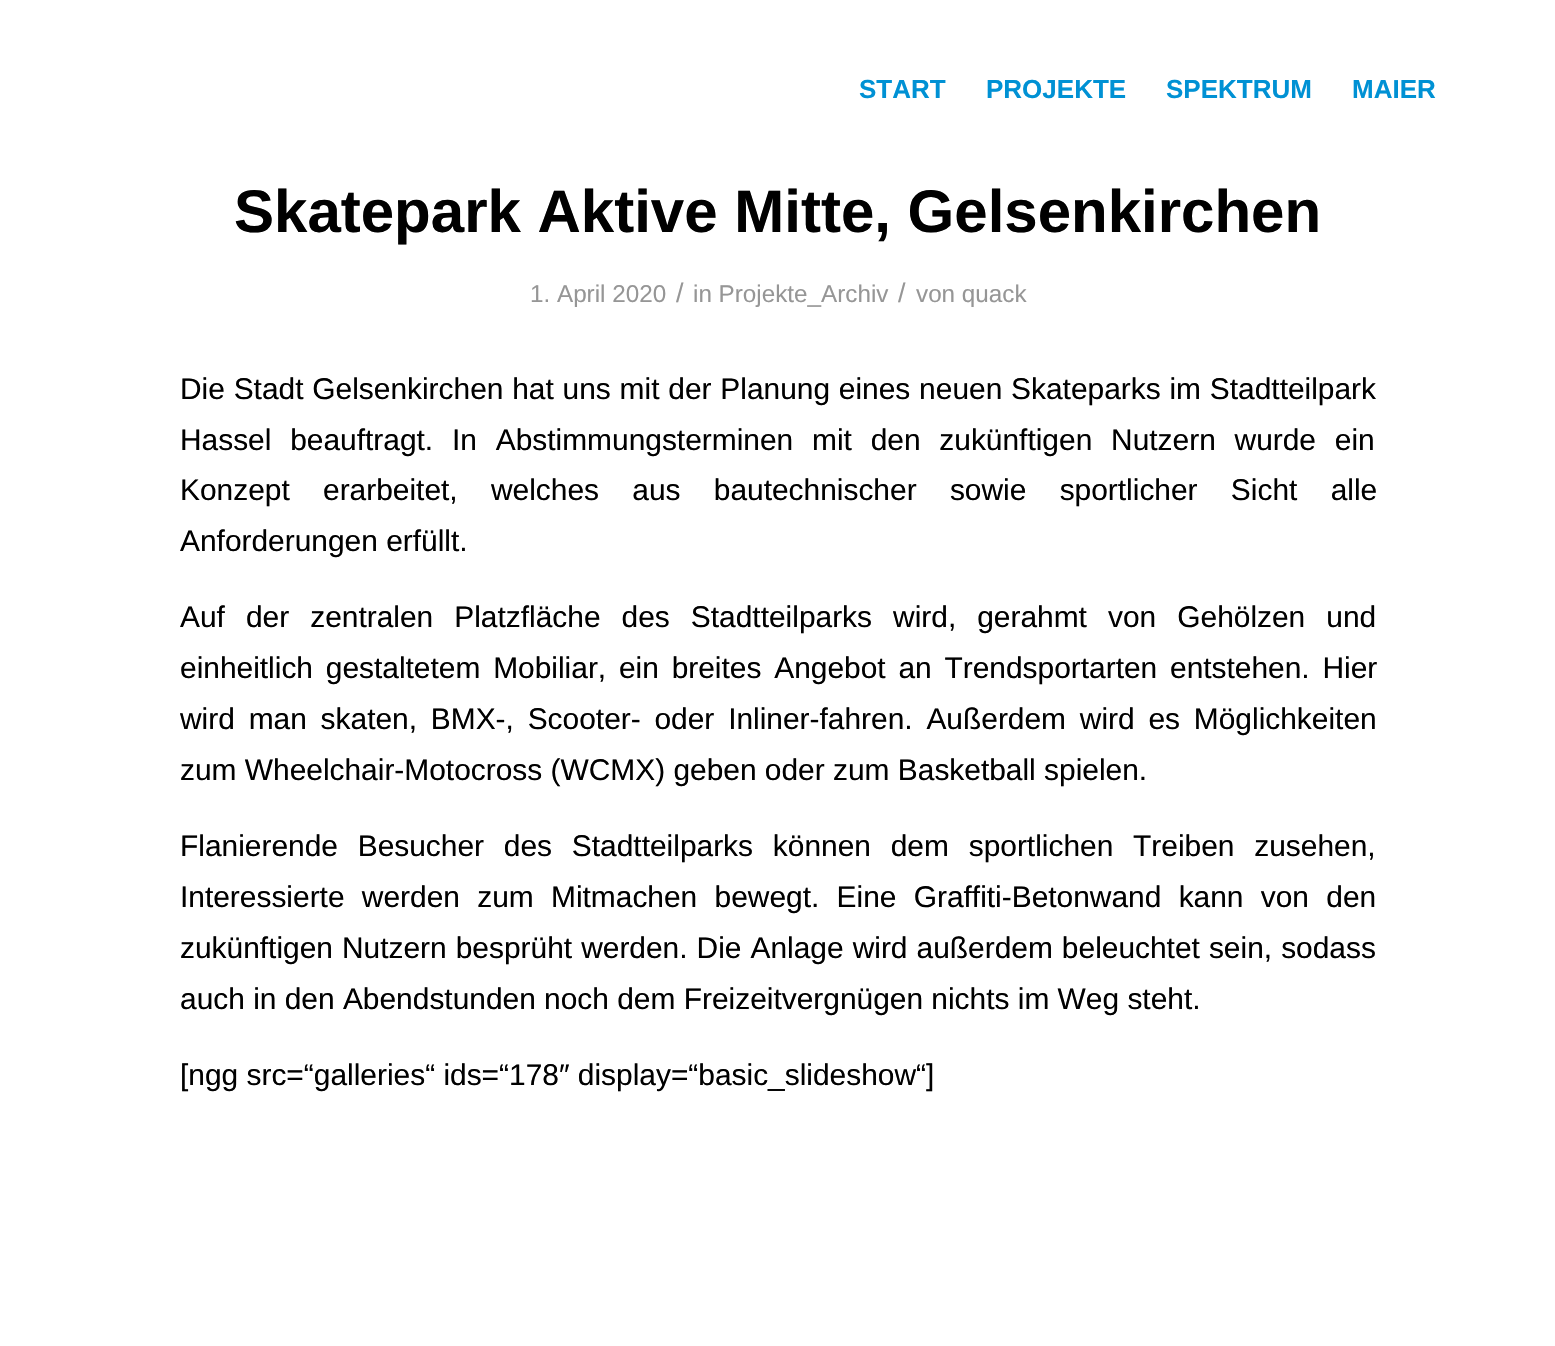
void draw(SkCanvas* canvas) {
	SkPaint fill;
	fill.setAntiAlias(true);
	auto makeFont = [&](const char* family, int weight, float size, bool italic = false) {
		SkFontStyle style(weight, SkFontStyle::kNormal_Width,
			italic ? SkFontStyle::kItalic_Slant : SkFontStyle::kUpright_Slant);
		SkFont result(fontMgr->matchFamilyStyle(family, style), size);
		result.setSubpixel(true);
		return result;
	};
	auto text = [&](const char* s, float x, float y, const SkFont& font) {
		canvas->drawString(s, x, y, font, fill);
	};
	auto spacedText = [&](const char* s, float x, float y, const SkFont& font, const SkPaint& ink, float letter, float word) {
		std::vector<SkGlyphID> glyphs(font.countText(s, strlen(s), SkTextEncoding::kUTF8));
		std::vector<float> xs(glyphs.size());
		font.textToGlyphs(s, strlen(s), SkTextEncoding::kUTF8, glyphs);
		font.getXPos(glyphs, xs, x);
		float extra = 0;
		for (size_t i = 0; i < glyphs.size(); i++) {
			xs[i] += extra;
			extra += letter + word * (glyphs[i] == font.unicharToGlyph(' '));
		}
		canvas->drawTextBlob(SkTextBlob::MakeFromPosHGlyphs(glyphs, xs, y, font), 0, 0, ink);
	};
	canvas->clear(0xFFFFFFFF);
	auto font1 = makeFont("Liberation Sans", 700, 26);
	fill.setColor(0xFF0091D4);
	text("START", 859, 98, font1);
	text("PROJEKTE", 986, 98, font1);
	text("SPEKTRUM", 1166, 98, font1);
	text("MAIER", 1352, 98, font1);
	auto font2 = makeFont("Liberation Sans", 700, 60);
	fill.setColor(0xFF000000);
	text("Skatepark Aktive Mitte, Gelsenkirchen", 234, 232, font2);
	auto font3 = makeFont("Liberation Sans", 400, 24.25f);
	fill.setColor(0xFF969696);
	text("1. April 2020", 530, 302, font3);
	auto font4 = makeFont("Liberation Sans", 400, 27);
	text("/", 676, 302, font4);
	text("in Projekte_Archiv", 693, 302, font3);
	text("/", 898, 302, font4);
	text("von quack", 916, 302, font3);
	auto font5 = makeFont("Liberation Sans", 400, 29.9f);
	fill.setColor(0xFF000000);
	spacedText("Die Stadt Gelsenkirchen hat uns mit der Planung eines neuen Skateparks im Stadtteilpark", 180, 399, font5, fill, 0, 0.5f);
	spacedText("Hassel beauftragt. In Abstimmungsterminen mit den zukünftigen Nutzern wurde ein", 180, 450, font5, fill, 0, 10.5f);
	spacedText("Konzept erarbeitet, welches aus bautechnischer sowie sportlicher Sicht alle", 180, 500, font5, fill, 0, 25);
	text("Anforderungen erfüllt.", 180, 551, font5);
	spacedText("Auf der zentralen Platzfläche des Stadtteilparks wird, gerahmt von Gehölzen und", 180, 627, font5, fill, 0, 12.75f);
	spacedText("einheitlich gestaltetem Mobiliar, ein breites Angebot an Trendsportarten entstehen. Hier", 180, 678, font5, fill, 0, 4.5f);
	spacedText("wird man skaten, BMX-, Scooter- oder Inliner-fahren. Außerdem wird es Möglichkeiten", 180, 729, font5, fill, 0, 5.5f);
	text("zum Wheelchair-Motocross (WCMX) geben oder zum Basketball spielen.", 180, 780, font5);
	spacedText("Flanierende Besucher des Stadtteilparks können dem sportlichen Treiben zusehen,", 180, 856, font5, fill, 0, 11.5f);
	spacedText("Interessierte werden zum Mitmachen bewegt. Eine Graffiti-Betonwand kann von den", 180, 907, font5, fill, 0, 9);
	spacedText("zukünftigen Nutzern besprüht werden. Die Anlage wird außerdem beleuchtet sein, sodass", 180, 958, font5, fill, 0, 0.75f);
	text("auch in den Abendstunden noch dem Freizeitvergnügen nichts im Weg steht.", 180, 1009, font5);
	text("[ngg src=“galleries“ ids=“178″ display=“basic_slideshow“]", 180, 1085, font5);
}
